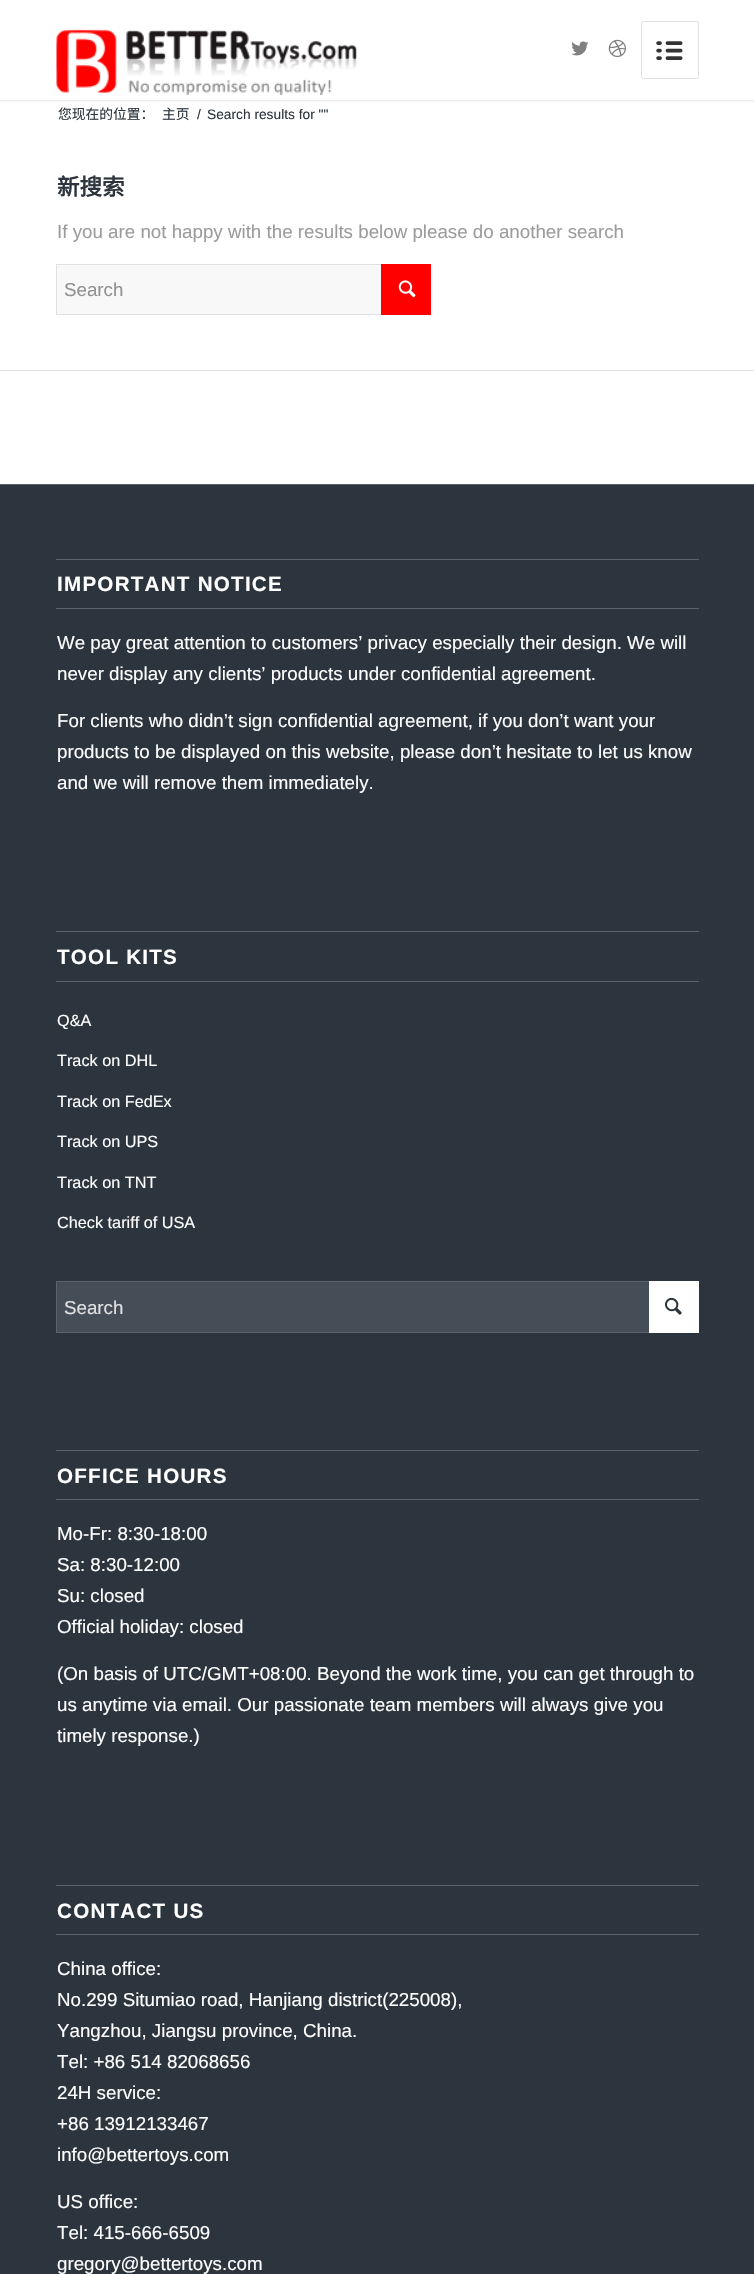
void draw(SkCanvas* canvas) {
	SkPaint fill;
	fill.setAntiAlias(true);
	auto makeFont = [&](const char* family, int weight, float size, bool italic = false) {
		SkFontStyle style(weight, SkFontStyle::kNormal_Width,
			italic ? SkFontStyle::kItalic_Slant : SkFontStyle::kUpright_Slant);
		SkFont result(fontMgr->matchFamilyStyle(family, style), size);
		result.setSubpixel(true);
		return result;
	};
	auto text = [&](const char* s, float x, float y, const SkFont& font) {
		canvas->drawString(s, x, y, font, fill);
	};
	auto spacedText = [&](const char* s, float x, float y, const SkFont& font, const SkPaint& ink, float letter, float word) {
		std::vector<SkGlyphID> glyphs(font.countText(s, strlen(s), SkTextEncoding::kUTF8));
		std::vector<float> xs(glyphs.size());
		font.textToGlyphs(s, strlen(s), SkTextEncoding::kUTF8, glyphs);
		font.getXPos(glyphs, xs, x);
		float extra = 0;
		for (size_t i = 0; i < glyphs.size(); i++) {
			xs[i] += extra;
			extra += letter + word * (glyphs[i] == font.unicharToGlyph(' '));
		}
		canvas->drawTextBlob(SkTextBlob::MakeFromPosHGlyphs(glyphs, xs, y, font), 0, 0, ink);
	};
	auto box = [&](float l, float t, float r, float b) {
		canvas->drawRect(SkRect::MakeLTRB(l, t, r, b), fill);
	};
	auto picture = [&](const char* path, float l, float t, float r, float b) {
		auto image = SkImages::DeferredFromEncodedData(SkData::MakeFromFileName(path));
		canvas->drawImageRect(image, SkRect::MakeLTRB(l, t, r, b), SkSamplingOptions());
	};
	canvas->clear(0xFFFFFFFF);
	fill.setColor(0x1A000000);
	fill.setMaskFilter(SkMaskFilter::MakeBlur(kNormal_SkBlurStyle, 1));
	canvas->drawRect(SkRect::MakeLTRB(-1, -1, 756, 101), fill);
	fill.setMaskFilter(nullptr);
	fill.setColor(0xFFFFFFFF);
	box(0, 0, 754, 100);
	picture("image0.png", 56, 29, 357, 95);
	picture("image1.png", 571, 41, 589, 56);
	picture("image2.png", 608, 39, 626, 58);
	fill.setStyle(SkPaint::kStroke_Style);
	fill.setStrokeWidth(1);
	fill.setColor(0xFFE1E1E1);
	canvas->drawRoundRect(SkRect::MakeLTRB(641.5f, 21.5f, 698.5f, 78.5f), 2, 2, fill);
	picture("image3.png", 656, 41, 683, 60);
	fill.setStyle(SkPaint::kFill_Style);
	fill.setColor(0xFFF8F8F8);
	box(57, 265, 381, 314);
	fill.setStyle(SkPaint::kStroke_Style);
	fill.setColor(0xFFE1E1E1);
	canvas->drawRect(SkRect::MakeLTRB(56.5f, 264.5f, 430.5f, 314.5f), fill);
	fill.setStyle(SkPaint::kFill_Style);
	fill.setColor(0xFFFF0000);
	box(381, 264, 431, 315);
	picture("image4.png", 398, 280, 416, 298);
	fill.setColor(0xFFE1E1E1);
	box(0, 370, 754, 371);
	fill.setColor(0xFF2C353D);
	box(0, 485, 754, 2274);
	fill.setColor(0xFF5B646B);
	box(0, 484, 754, 485);
	box(56, 559, 699, 560);
	box(56, 608, 699, 609);
	box(56, 931, 699, 932);
	box(56, 981, 699, 982);
	fill.setColor(0xFF454E57);
	box(57, 1282, 649, 1332);
	fill.setStyle(SkPaint::kStroke_Style);
	fill.setColor(0xFF5B646B);
	canvas->drawRect(SkRect::MakeLTRB(56.5f, 1281.5f, 698.5f, 1332.5f), fill);
	fill.setStyle(SkPaint::kFill_Style);
	fill.setColor(0xFFFFFFFF);
	box(649, 1281, 699, 1333);
	picture("image5.png", 665, 1297, 682, 1315);
	fill.setColor(0xFF5B646B);
	box(56, 1450, 699, 1451);
	box(56, 1499, 699, 1500);
	box(56, 1885, 699, 1886);
	box(56, 1934, 699, 1935);
	auto font1 = makeFont("Noto Sans CJK SC", 400, 13.75f);
	fill.setColor(0xFF2C353D);
	text("您现在的位置：", 58, 119, font1);
	text("主页", 162, 119, font1);
	auto font2 = makeFont("Liberation Sans", 400, 13.75f);
	text("/", 197, 119, font2);
	text("Search results for \"\"", 207, 119, font2);
	auto font3 = makeFont("Noto Sans CJK SC", 700, 22.5f);
	text("新搜索", 57, 195, font3);
	auto font4 = makeFont("Liberation Sans", 400, 18.75f);
	fill.setColor(0xFF9C9C9C);
	text("If you are not happy with the results below please do another search", 57, 238, font4);
	fill.setColor(0xFF919191);
	text("Search", 64, 296, font4);
	auto font5 = makeFont("Liberation Sans", 700, 20.6f);
	fill.setColor(0xFFFFFFFF);
	spacedText("IMPORTANT NOTICE", 57, 591, font5, fill, 1.25f, 0);
	text("We pay great attention to customers’ privacy especially their design. We will", 57, 649, font4);
	text("never display any clients’ products under confidential agreement.", 57, 680, font4);
	text("For clients who didn’t sign confidential agreement, if you don’t want your", 57, 727, font4);
	text("products to be displayed on this website, please don’t hesitate to let us know", 57, 758, font4);
	text("and we will remove them immediately.", 57, 789, font4);
	spacedText("TOOL KITS", 57, 964, font5, fill, 1.25f, 0);
	auto font6 = makeFont("Liberation Sans", 400, 16.25f);
	text("Q&A", 57, 1026, font6);
	text("Track on DHL", 57, 1066, font6);
	text("Track on FedEx", 57, 1107, font6);
	text("Track on UPS", 57, 1147, font6);
	text("Track on TNT", 57, 1188, font6);
	text("Check tariff of USA", 57, 1228, font6);
	fill.setColor(0xFFE1E1E1);
	text("Search", 64, 1314, font4);
	fill.setColor(0xFFFFFFFF);
	spacedText("OFFICE HOURS", 57, 1483, font5, fill, 1.25f, 0);
	text("Mo-Fr: 8:30-18:00", 57, 1540, font4);
	text("Sa: 8:30-12:00", 57, 1571, font4);
	text("Su: closed", 57, 1602, font4);
	text("Official holiday: closed", 57, 1633, font4);
	text("(On basis of UTC/GMT+08:00. Beyond the work time, you can get through to", 57, 1680, font4);
	text("us anytime via email. Our passionate team members will always give you", 57, 1711, font4);
	text("timely response.)", 57, 1742, font4);
	spacedText("CONTACT US", 57, 1918, font5, fill, 1.25f, 0);
	text("China office:", 57, 1975, font4);
	text("No.299 Situmiao road, Hanjiang district(225008),", 57, 2006, font4);
	text("Yangzhou, Jiangsu province, China.", 57, 2037, font4);
	text("Tel: +86 514 82068656", 57, 2068, font4);
	text("24H service:", 57, 2099, font4);
	text("+86 13912133467", 57, 2130, font4);
	text("info@bettertoys.com", 57, 2161, font4);
	text("US office:", 57, 2208, font4);
	text("Tel: 415-666-6509", 57, 2239, font4);
	text("gregory@bettertoys.com", 57, 2270, font4);
}
